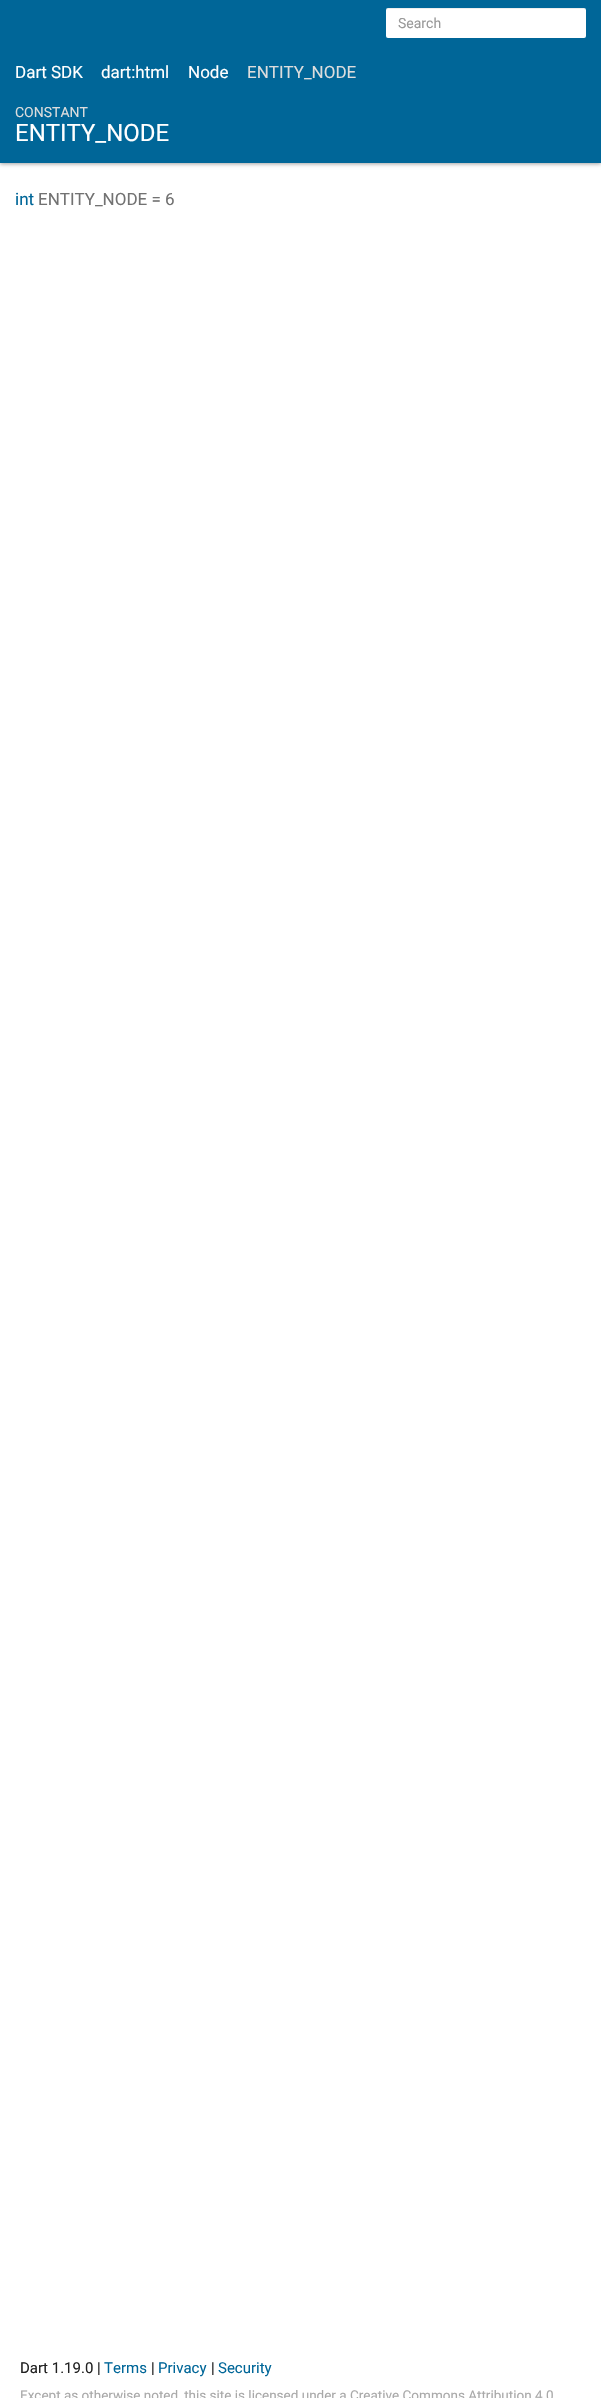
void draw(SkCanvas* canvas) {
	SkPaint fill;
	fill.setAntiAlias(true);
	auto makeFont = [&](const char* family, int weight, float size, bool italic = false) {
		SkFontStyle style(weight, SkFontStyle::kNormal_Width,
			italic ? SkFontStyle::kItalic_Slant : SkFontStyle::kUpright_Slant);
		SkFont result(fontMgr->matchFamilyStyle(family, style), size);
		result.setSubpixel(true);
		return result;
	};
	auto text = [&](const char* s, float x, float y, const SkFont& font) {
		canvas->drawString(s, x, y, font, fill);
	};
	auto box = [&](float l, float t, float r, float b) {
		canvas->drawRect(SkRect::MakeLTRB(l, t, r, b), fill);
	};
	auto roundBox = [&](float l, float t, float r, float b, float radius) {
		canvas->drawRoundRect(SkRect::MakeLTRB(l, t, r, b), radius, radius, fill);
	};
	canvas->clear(0xFFFFFFFF);
	fill.setColor(0x5E000000);
	fill.setMaskFilter(SkMaskFilter::MakeBlur(kNormal_SkBlurStyle, 2));
	canvas->drawRect(SkRect::MakeLTRB(0, 1, 601, 164), fill);
	fill.setMaskFilter(nullptr);
	fill.setColor(0xFF006698);
	box(0, 0, 601, 163);
	fill.setColor(0xFFFFFFFF);
	roundBox(386, 8, 586, 38, 2);
	fill.setColor(0x12000000);
	canvas->drawPath(SkPathBuilder().moveTo(388, 9).lineTo(584, 9).lineTo(586, 10).lineTo(586, 11).cubicTo(586, 10, 586, 8, 584, 8).lineTo(388, 8).cubicTo(386, 8, 386, 10, 386, 11).cubicTo(386, 10, 387, 9, 388, 9).close().detach(), fill);
	auto font1 = makeFont("Roboto", 400, 14);
	fill.setColor(0xFF999999);
	text("Search", 398, 28, font1);
	auto font2 = makeFont("Roboto", 400, 17);
	fill.setColor(0xFFFFFFFF);
	text("Dart SDK", 15, 78, font2);
	text("dart:html", 101, 78, font2);
	text("Node", 188, 78, font2);
	fill.setColor(0xFFDDDDDD);
	text("ENTITY_NODE", 247, 78, font2);
	text("CONSTANT", 15, 117, font1);
	auto font3 = makeFont("Roboto", 400, 24);
	fill.setColor(0xFFFFFFFF);
	text("ENTITY_NODE", 15, 141, font3);
	fill.setColor(0xFF006698);
	text("int", 15, 205, font2);
	fill.setColor(0xFF727272);
	text("ENTITY_NODE = 6", 38, 205, font2);
	auto font4 = makeFont("Roboto", 400, 15);
	fill.setColor(0xFF212121);
	text("Dart 1.19.0 |", 20, 2373, font4);
	fill.setColor(0xFF006698);
	text("Terms", 104, 2373, font4);
	fill.setColor(0xFF212121);
	text("|", 151, 2373, font4);
	fill.setColor(0xFF006698);
	text("Privacy", 158, 2373, font4);
	fill.setColor(0xFF212121);
	text("|", 211, 2373, font4);
	fill.setColor(0xFF006698);
	text("Security", 218, 2373, font4);
	auto font5 = makeFont("Roboto", 400, 13.5f);
	fill.setColor(0xFFA9A9A9);
	text("Except as otherwise noted, this site is licensed under a Creative Commons Attribution 4.0", 20, 2400, font5);
}
